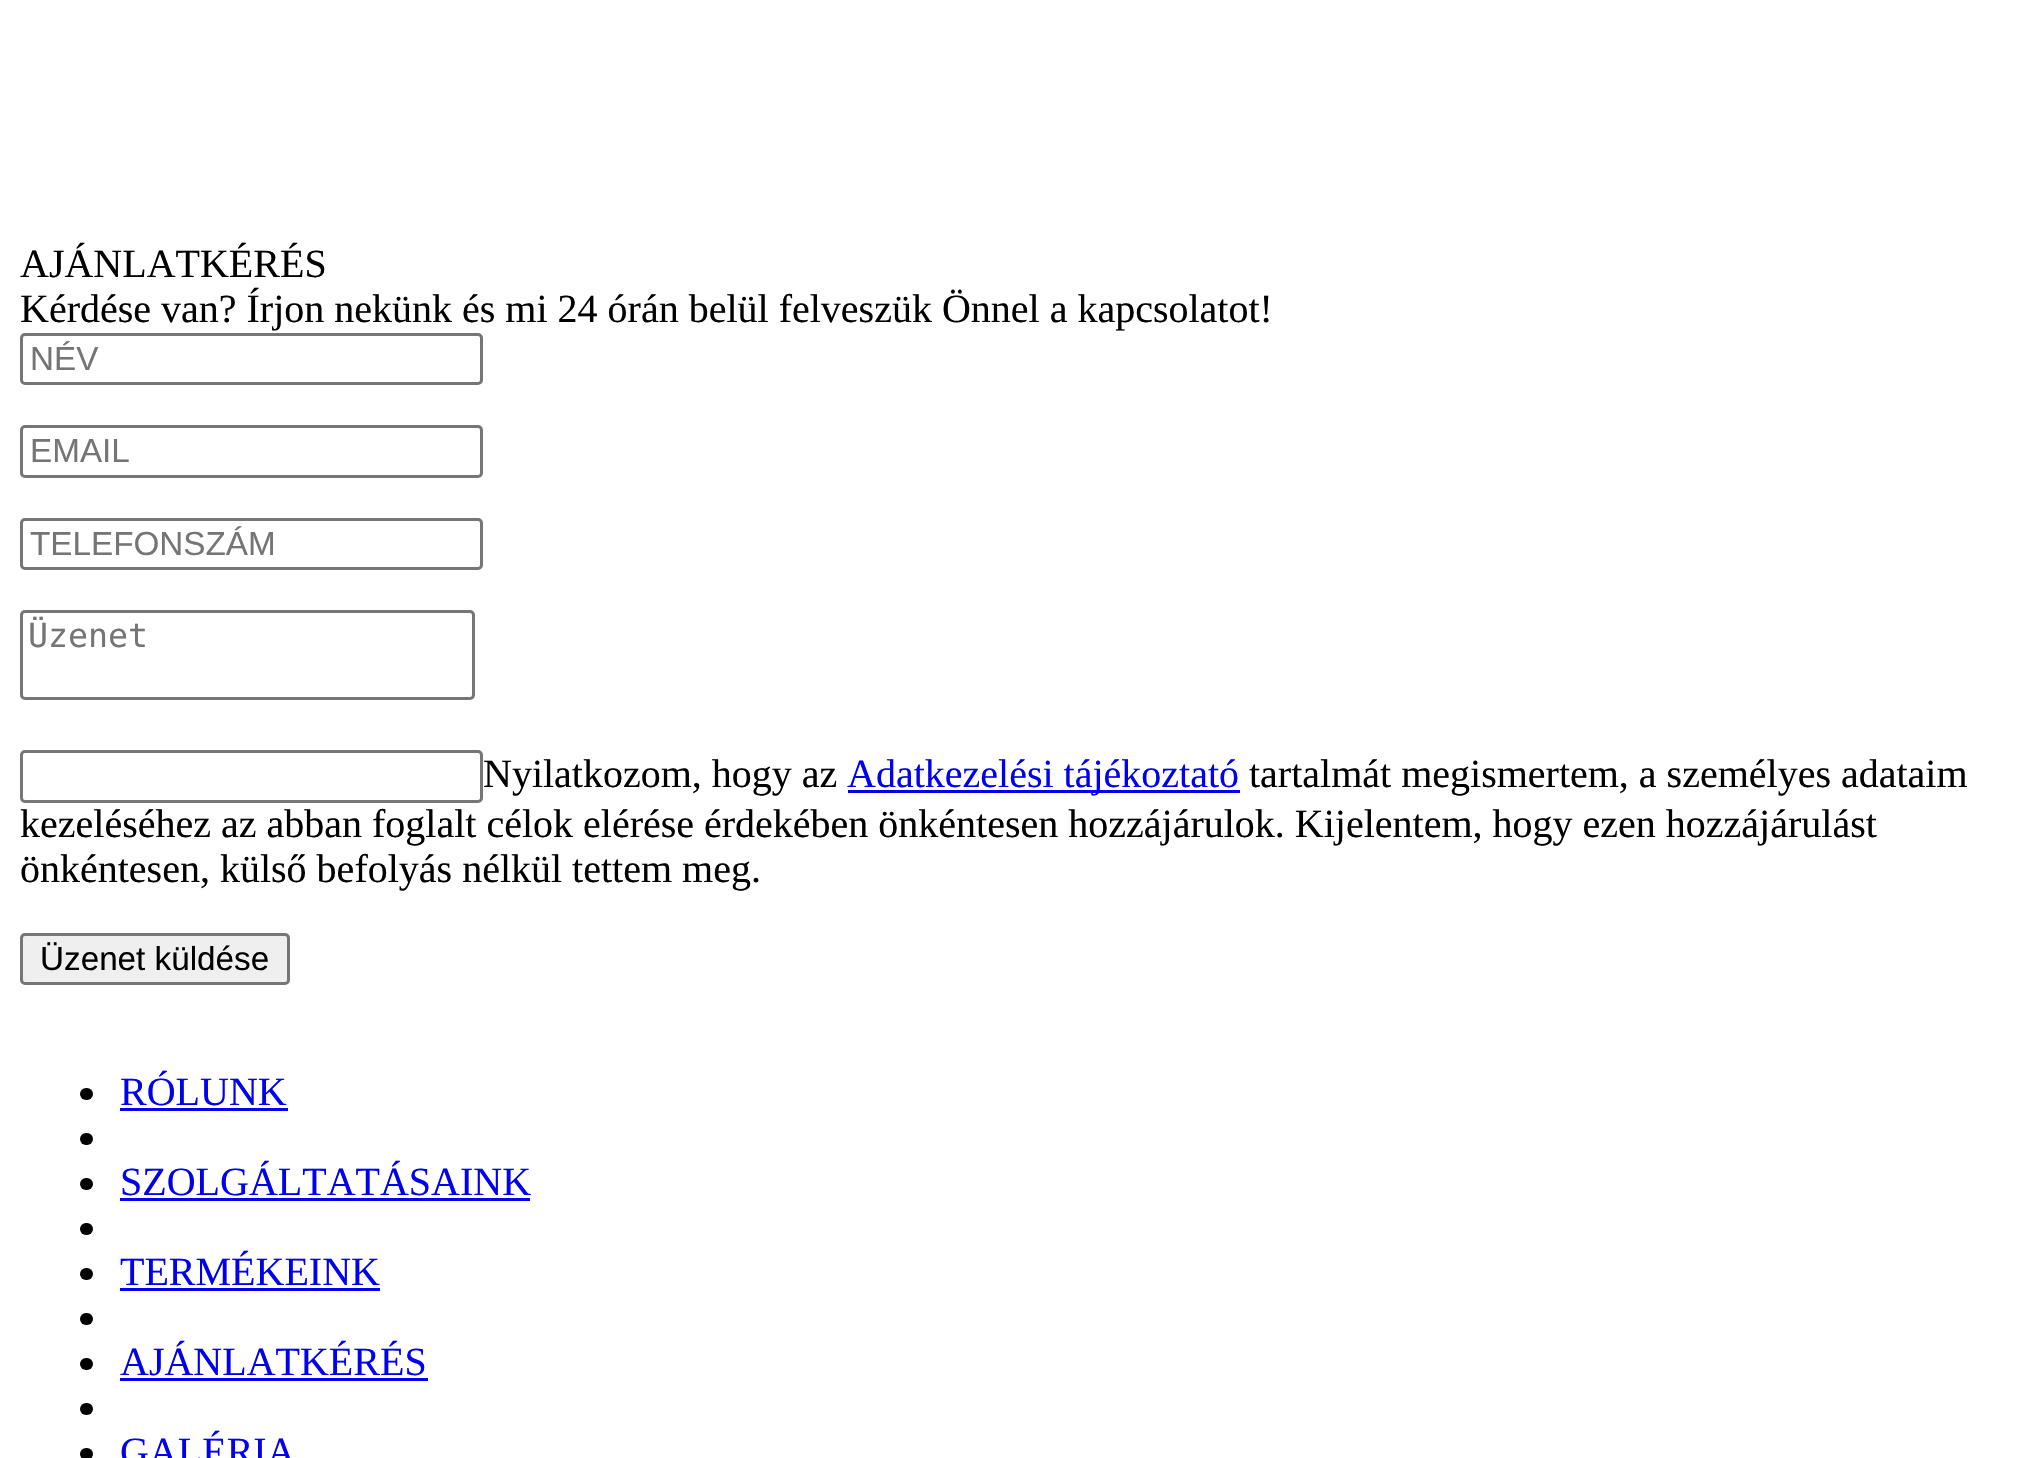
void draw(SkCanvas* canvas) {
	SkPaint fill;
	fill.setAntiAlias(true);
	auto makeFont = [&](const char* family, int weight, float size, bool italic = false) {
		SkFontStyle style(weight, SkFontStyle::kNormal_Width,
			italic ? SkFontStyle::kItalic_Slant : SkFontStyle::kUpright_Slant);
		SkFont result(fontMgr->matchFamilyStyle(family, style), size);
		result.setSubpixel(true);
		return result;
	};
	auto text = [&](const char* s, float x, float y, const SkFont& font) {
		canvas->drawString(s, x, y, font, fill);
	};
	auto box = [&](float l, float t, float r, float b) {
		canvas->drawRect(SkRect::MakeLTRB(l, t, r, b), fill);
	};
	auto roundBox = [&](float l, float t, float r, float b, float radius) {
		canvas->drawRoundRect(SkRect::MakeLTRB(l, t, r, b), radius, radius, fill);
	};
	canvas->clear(0xFFFFFFFF);
	fill.setStyle(SkPaint::kStroke_Style);
	fill.setStrokeWidth(3);
	fill.setColor(0xFF767676);
	canvas->drawRoundRect(SkRect::MakeLTRB(21.5f, 334.5f, 481.5f, 383.5f), 3.5f, 3.5f, fill);
	canvas->drawRoundRect(SkRect::MakeLTRB(21.5f, 426.5f, 481.5f, 476.5f), 3.5f, 3.5f, fill);
	canvas->drawRoundRect(SkRect::MakeLTRB(21.5f, 519.5f, 481.5f, 568.5f), 3.5f, 3.5f, fill);
	canvas->drawRoundRect(SkRect::MakeLTRB(21.5f, 611.5f, 473.5f, 698.5f), 3.5f, 3.5f, fill);
	canvas->drawRoundRect(SkRect::MakeLTRB(21.5f, 751.5f, 481.5f, 801.5f), 3.5f, 3.5f, fill);
	fill.setStyle(SkPaint::kFill_Style);
	fill.setColor(0xFF0000EE);
	box(848, 790, 1240, 793);
	fill.setColor(0xFFEFEFEF);
	canvas->drawRoundRect(SkRect::MakeLTRB(21.5f, 934.5f, 288.5f, 983.5f), 3.5f, 3.5f, fill);
	fill.setStyle(SkPaint::kStroke_Style);
	fill.setColor(0xFF767676);
	canvas->drawRoundRect(SkRect::MakeLTRB(21.5f, 934.5f, 288.5f, 983.5f), 3.5f, 3.5f, fill);
	fill.setStyle(SkPaint::kFill_Style);
	fill.setColor(0xFF000000);
	roundBox(80, 1088, 93, 1100, 6);
	fill.setColor(0xFF0000EE);
	box(120, 1108, 288, 1111);
	fill.setColor(0xFF000000);
	roundBox(80, 1133, 93, 1145, 6);
	roundBox(80, 1178, 93, 1190, 6);
	fill.setColor(0xFF0000EE);
	box(120, 1198, 530, 1201);
	fill.setColor(0xFF000000);
	roundBox(80, 1223, 93, 1235, 6);
	roundBox(80, 1268, 93, 1280, 6);
	fill.setColor(0xFF0000EE);
	box(120, 1288, 380, 1291);
	fill.setColor(0xFF000000);
	roundBox(80, 1313, 93, 1325, 6);
	roundBox(80, 1358, 93, 1370, 6);
	fill.setColor(0xFF0000EE);
	box(120, 1378, 428, 1381);
	fill.setColor(0xFF000000);
	roundBox(80, 1403, 93, 1415, 6);
	roundBox(80, 1448, 93, 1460, 6);
	auto font1 = makeFont("Liberation Serif", 400, 40);
	text("AJÁNLATKÉRÉS", 20, 277, font1);
	text("Kérdése van? Írjon nekünk és mi 24 órán belül felveszük Önnel a kapcsolatot!", 20, 322, font1);
	auto font2 = makeFont("Liberation Sans", 400, 33.25f);
	fill.setColor(0xFF757575);
	text("NÉV", 30, 370, font2);
	text("EMAIL", 30, 462, font2);
	text("TELEFONSZÁM", 30, 555, font2);
	auto font3 = makeFont("DejaVu Sans Mono", 400, 33.25f);
	text("Üzenet", 28, 647, font3);
	fill.setColor(0xFF000000);
	text("Nyilatkozom, hogy az", 483, 787, font1);
	fill.setColor(0xFF0000EE);
	text("Adatkezelési tájékoztató", 847, 787, font1);
	fill.setColor(0xFF000000);
	text("tartalmát megismertem, a személyes adataim", 1249, 787, font1);
	text("kezeléséhez az abban foglalt célok elérése érdekében önkéntesen hozzájárulok. Kijelentem, hogy ezen hozzájárulást", 20, 837, font1);
	text("önkéntesen, külső befolyás nélkül tettem meg.", 20, 882, font1);
	text("Üzenet küldése", 40, 970, font2);
	fill.setColor(0xFF0000EE);
	text("RÓLUNK", 120, 1105, font1);
	text("SZOLGÁLTATÁSAINK", 120, 1195, font1);
	text("TERMÉKEINK", 120, 1285, font1);
	text("AJÁNLATKÉRÉS", 120, 1375, font1);
	text("GALÉRIA", 120, 1465, font1);
}
